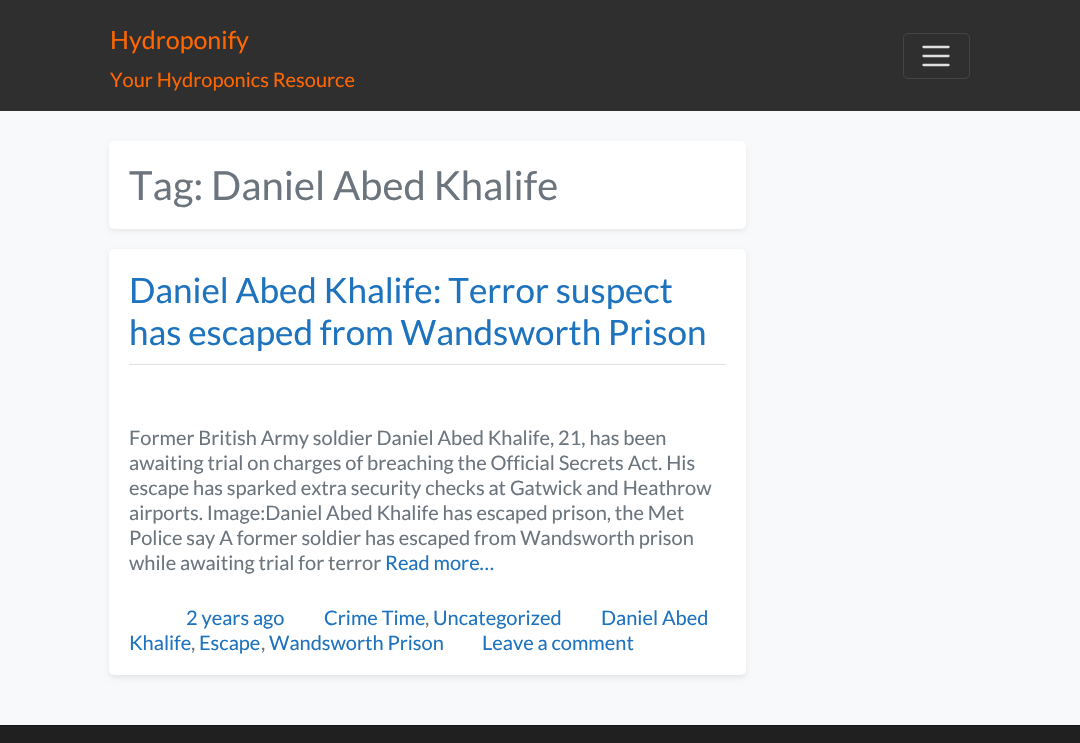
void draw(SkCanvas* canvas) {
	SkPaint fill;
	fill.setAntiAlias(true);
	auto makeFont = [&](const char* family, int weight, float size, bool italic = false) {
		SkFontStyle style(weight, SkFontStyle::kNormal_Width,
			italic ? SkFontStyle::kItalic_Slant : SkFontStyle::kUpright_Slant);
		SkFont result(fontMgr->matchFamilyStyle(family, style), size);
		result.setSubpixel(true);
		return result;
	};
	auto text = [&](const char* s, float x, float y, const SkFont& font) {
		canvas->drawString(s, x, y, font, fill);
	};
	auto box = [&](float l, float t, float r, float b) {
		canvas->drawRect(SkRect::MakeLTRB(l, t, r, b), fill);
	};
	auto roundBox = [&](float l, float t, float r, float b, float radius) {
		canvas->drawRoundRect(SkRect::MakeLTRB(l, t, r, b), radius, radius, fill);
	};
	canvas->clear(0xFFF8F9FA);
	fill.setColor(0xFF2F2F2F);
	box(0, 0, 1080, 111);
	fill.setStyle(SkPaint::kStroke_Style);
	fill.setStrokeWidth(1);
	fill.setColor(0xFF444444);
	canvas->drawRoundRect(SkRect::MakeLTRB(903.5f, 33.5f, 969.5f, 78.5f), 4.5f, 4.5f, fill);
	fill.setStrokeWidth(2.3f);
	fill.setStrokeCap(SkPaint::kRound_Cap);
	fill.setColor(0xFFE0E0E0);
	canvas->drawPath(SkPathBuilder().moveTo(923.5f, 47).lineTo(948.5f, 47).moveTo(923.5f, 56).lineTo(948.5f, 56).moveTo(923.5f, 65).lineTo(948.5f, 65).detach(), fill);
	fill.setStyle(SkPaint::kFill_Style);
	fill.setColor(0x12000000);
	fill.setMaskFilter(SkMaskFilter::MakeBlur(kNormal_SkBlurStyle, 2.5f));
	canvas->drawRoundRect(SkRect::MakeLTRB(109, 144, 746, 231), 5, 5, fill);
	fill.setMaskFilter(nullptr);
	fill.setColor(0xFFFFFFFF);
	roundBox(109, 141, 746, 229, 5);
	fill.setColor(0x12000000);
	fill.setMaskFilter(SkMaskFilter::MakeBlur(kNormal_SkBlurStyle, 2.5f));
	canvas->drawRoundRect(SkRect::MakeLTRB(109, 251, 746, 678), 5, 5, fill);
	fill.setMaskFilter(nullptr);
	fill.setColor(0xFFFFFFFF);
	roundBox(109, 249, 746, 675, 5);
	fill.setColor(0xFFDEE2E6);
	box(129, 364, 726, 365);
	fill.setColor(0xFF202020);
	box(0, 726, 1080, 743);
	fill.setColor(0xFF151515);
	box(0, 725, 1080, 726);
	auto font1 = makeFont("Lato", 400, 25);
	fill.setColor(0xFFFF6600);
	text("Hydroponify", 110, 49, font1);
	auto font2 = makeFont("Lato", 400, 20);
	text("Your Hydroponics Resource", 110, 87, font2);
	auto font3 = makeFont("Lato", 400, 40);
	fill.setColor(0xFF6C757D);
	text("Tag: Daniel Abed Khalife", 129, 200, font3);
	auto font4 = makeFont("Lato", 400, 35);
	fill.setColor(0xFF1E73BE);
	text("Daniel Abed Khalife: Terror suspect", 129, 303, font4);
	text("has escaped from Wandsworth Prison", 129, 345, font4);
	fill.setColor(0xFF6C757D);
	text("Former British Army soldier Daniel Abed Khalife, 21, has been", 129, 445, font2);
	text("awaiting trial on charges of breaching the Official Secrets Act. His", 129, 470, font2);
	text("escape has sparked extra security checks at Gatwick and Heathrow", 129, 495, font2);
	text("airports. Image:Daniel Abed Khalife has escaped prison, the Met", 129, 520, font2);
	text("Police say A former soldier has escaped from Wandsworth prison", 129, 545, font2);
	text("while awaiting trial for terror", 129, 570, font2);
	fill.setColor(0xFF1E73BE);
	text("Read more…", 385, 570, font2);
	text("2 years ago", 186, 625, font2);
	text("Crime Time", 324, 625, font2);
	fill.setColor(0xFF6C757D);
	text(",", 425, 625, font2);
	fill.setColor(0xFF1E73BE);
	text("Uncategorized", 433, 625, font2);
	text("Daniel Abed", 601, 625, font2);
	text("Khalife", 129, 650, font2);
	fill.setColor(0xFF6C757D);
	text(",", 191, 650, font2);
	fill.setColor(0xFF1E73BE);
	text("Escape", 199, 650, font2);
	fill.setColor(0xFF6C757D);
	text(",", 261, 650, font2);
	fill.setColor(0xFF1E73BE);
	text("Wandsworth Prison", 269, 650, font2);
	text("Leave a comment", 482, 650, font2);
}
